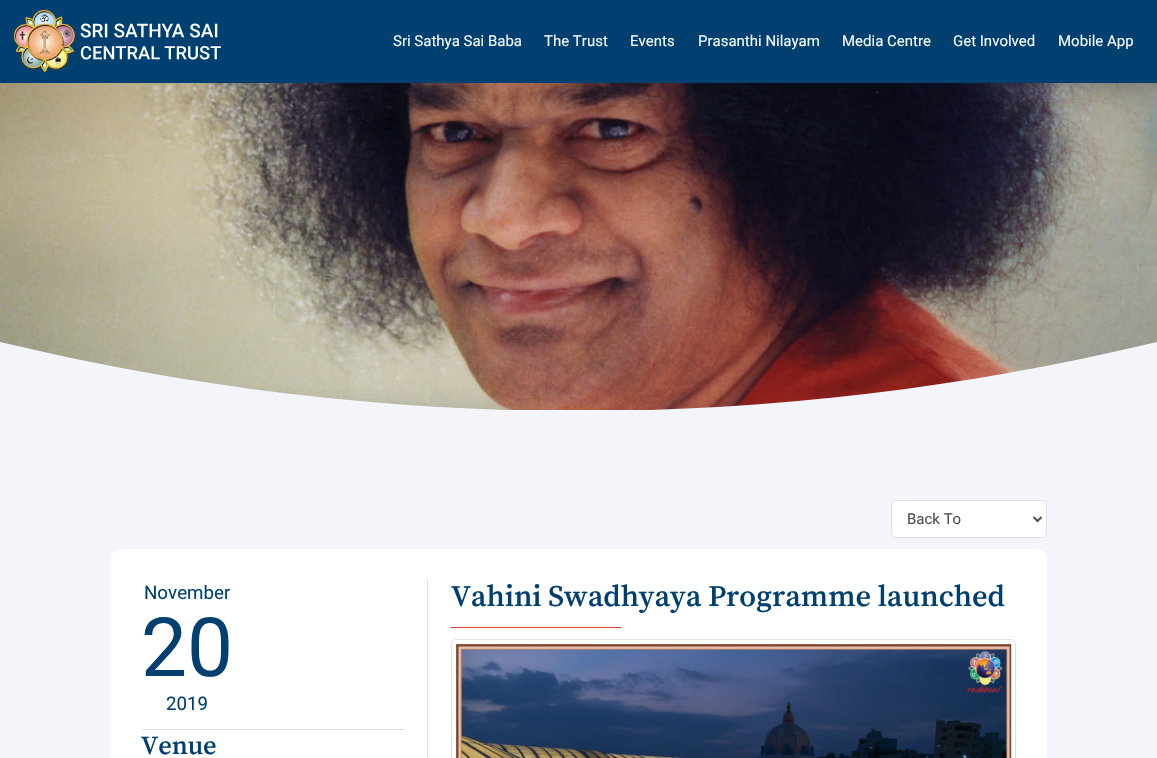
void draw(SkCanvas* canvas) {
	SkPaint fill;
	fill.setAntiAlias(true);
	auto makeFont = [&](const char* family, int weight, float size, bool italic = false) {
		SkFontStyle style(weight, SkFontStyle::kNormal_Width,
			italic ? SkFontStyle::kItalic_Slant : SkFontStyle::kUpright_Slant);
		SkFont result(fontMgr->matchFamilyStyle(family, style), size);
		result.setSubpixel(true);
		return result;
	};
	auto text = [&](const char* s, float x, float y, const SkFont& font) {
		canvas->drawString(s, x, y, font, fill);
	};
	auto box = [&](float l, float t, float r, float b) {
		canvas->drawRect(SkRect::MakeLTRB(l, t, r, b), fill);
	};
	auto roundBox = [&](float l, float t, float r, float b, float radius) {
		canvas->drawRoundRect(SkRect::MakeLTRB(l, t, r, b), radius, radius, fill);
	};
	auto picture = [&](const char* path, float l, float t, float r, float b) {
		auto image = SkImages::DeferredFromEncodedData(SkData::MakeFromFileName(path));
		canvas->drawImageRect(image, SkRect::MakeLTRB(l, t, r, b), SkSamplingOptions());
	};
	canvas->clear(0xFFFFFFFF);
	fill.setColor(0xFF004071);
	box(0, 0, 1157, 83);
	picture("image0.png", 13, 10, 221, 73);
	picture("image1.png", 0, 83, 1157, 410);
	fill.setColor(0xFFF3F5FB);
	canvas->drawPath(SkPathBuilder().moveTo(0, 342).cubicTo(193, 388, 386, 411, 578, 411).cubicTo(771, 411, 964, 388, 1157, 342).lineTo(1157, 411).lineTo(0, 411).close().detach(), fill);
	box(0, 410, 1157, 758);
	fill.setColor(0xFFFFFFFF);
	canvas->drawRoundRect(SkRect::MakeLTRB(891.5f, 500.5f, 1046.5f, 537.5f), 4.5f, 4.5f, fill);
	fill.setStyle(SkPaint::kStroke_Style);
	fill.setStrokeWidth(1);
	fill.setColor(0xFFDEE2E6);
	canvas->drawRoundRect(SkRect::MakeLTRB(891.5f, 500.5f, 1046.5f, 537.5f), 4.5f, 4.5f, fill);
	fill.setStrokeWidth(2);
	fill.setColor(0xFF495057);
	canvas->drawPath(SkPathBuilder().moveTo(1033.5f, 517).lineTo(1037.5f, 521).lineTo(1041.5f, 517).detach(), fill);
	fill.setStyle(SkPaint::kFill_Style);
	fill.setColor(0xFFFFFFFF);
	roundBox(111, 549, 1047, 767, 9);
	fill.setColor(0xFFDEE2E6);
	box(427, 579, 428, 758);
	box(141, 729, 405, 730);
	fill.setColor(0xFFD64329);
	box(451, 627, 621, 628);
	fill.setStyle(SkPaint::kStroke_Style);
	fill.setStrokeWidth(1);
	fill.setColor(0xFFDEE2E6);
	canvas->drawRoundRect(SkRect::MakeLTRB(451.5f, 639.5f, 1015.5f, 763.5f), 4.5f, 4.5f, fill);
	picture("image2.png", 456, 644, 1012, 758);
	auto font1 = makeFont("Roboto", 400, 15);
	fill.setStyle(SkPaint::kFill_Style);
	fill.setColor(0xFFF8F9FA);
	text("Sri Sathya Sai Baba", 393, 46, font1);
	text("The Trust", 544, 46, font1);
	text("Events", 630, 46, font1);
	text("Prasanthi Nilayam", 698, 46, font1);
	text("Media Centre", 842, 46, font1);
	text("Get Involved", 953, 46, font1);
	text("Mobile App", 1058, 46, font1);
	fill.setColor(0xFF495057);
	text("Back To", 907, 524, font1);
	auto font2 = makeFont("Roboto", 400, 18.75f);
	fill.setColor(0xFF004071);
	text("November", 144, 599, font2);
	auto font3 = makeFont("Roboto", 400, 82);
	text("20", 141, 676, font3);
	text("2019", 166, 710, font2);
	auto font4 = makeFont("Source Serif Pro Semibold", 600, 26);
	text("Venue", 141, 754, font4);
	auto font5 = makeFont("Source Serif Pro Semibold", 600, 30);
	text("Vahini Swadhyaya Programme launched", 451, 606, font5);
}
